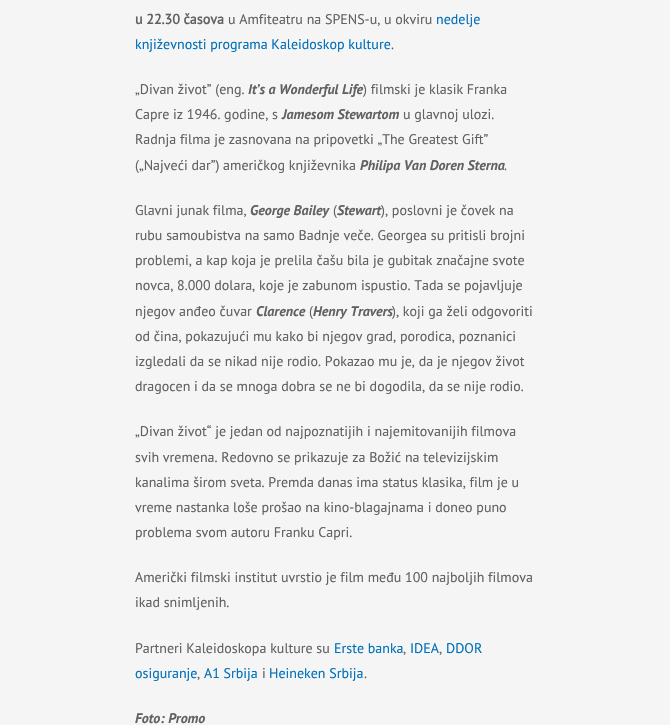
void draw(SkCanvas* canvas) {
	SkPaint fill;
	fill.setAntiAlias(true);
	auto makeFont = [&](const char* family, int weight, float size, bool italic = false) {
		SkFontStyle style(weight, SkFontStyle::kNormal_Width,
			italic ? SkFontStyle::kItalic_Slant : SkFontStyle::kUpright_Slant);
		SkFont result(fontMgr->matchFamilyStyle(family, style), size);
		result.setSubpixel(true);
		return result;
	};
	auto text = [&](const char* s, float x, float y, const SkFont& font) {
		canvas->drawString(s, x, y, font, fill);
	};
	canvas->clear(0xFFF5F5F5);
	auto font1 = makeFont("PT Sans", 700, 14);
	fill.setColor(0xFF616161);
	text("u 22.30 časova", 135, 24, font1);
	auto font2 = makeFont("PT Sans", 400, 14);
	text("u Amfiteatru na SPENS-u, u okviru", 228, 24, font2);
	fill.setColor(0xFF0170B9);
	text("nedelje", 436, 24, font2);
	text("književnosti programa Kaleidoskop kulture", 135, 49, font2);
	fill.setColor(0xFF616161);
	text(".", 391, 49, font2);
	text("„Divan život” (eng.", 135, 94, font2);
	auto font3 = makeFont("PT Sans", 700, 14, true);
	text("It’s a Wonderful Life", 248, 94, font3);
	text(") filmski je klasik Franka", 363, 94, font2);
	text("Capre iz 1946. godine, s", 135, 119, font2);
	text("Jamesom Stewartom", 282, 119, font3);
	text("u glavnoj ulozi.", 403, 119, font2);
	text("Radnja filma je zasnovana na pripovetki „The Greatest Gift”", 135, 144, font2);
	text("(„Najveći dar”) američkog književnika", 135, 170, font2);
	text("Philipa Van Doren Sterna", 360, 170, font3);
	text(".", 504, 170, font2);
	text("Glavni junak filma,", 135, 215, font2);
	text("George Bailey", 250, 215, font3);
	text("(", 333, 215, font2);
	text("Stewart", 337, 215, font3);
	text("), poslovni je čovek na", 381, 215, font2);
	text("rubu samoubistva na samo Badnje veče. Georgea su pritisli brojni", 135, 240, font2);
	text("problemi, a kap koja je prelila čašu bila je gubitak značajne svote", 135, 265, font2);
	text("novca, 8.000 dolara, koje je zabunom ispustio. Tada se pojavljuje", 135, 290, font2);
	text("njegov anđeo čuvar", 135, 316, font2);
	text("Clarence", 256, 316, font3);
	text("(", 309, 316, font2);
	text("Henry Travers", 313, 316, font3);
	text("), koji ga želi odgovoriti", 392, 316, font2);
	text("od čina, pokazujući mu kako bi njegov grad, porodica, poznanici", 135, 341, font2);
	text("izgledali da se nikad nije rodio. Pokazao mu je, da je njegov život", 135, 366, font2);
	text("dragocen i da se mnoga dobra se ne bi dogodila, da se nije rodio.", 135, 391, font2);
	text("„Divan život“ je jedan od najpoznatijih i najemitovanijih filmova", 135, 436, font2);
	text("svih vremena. Redovno se prikazuje za Božić na televizijskim", 135, 462, font2);
	text("kanalima širom sveta. Premda danas ima status klasika, film je u", 135, 487, font2);
	text("vreme nastanka loše prošao na kino-blagajnama i doneo puno", 135, 512, font2);
	text("problema svom autoru Franku Capri.", 135, 537, font2);
	text("Američki filmski institut uvrstio je film među 100 najboljih filmova", 135, 582, font2);
	text("ikad snimljenih.", 135, 607, font2);
	text("Partneri Kaleidoskopa kulture su", 135, 653, font2);
	fill.setColor(0xFF0170B9);
	text("Erste banka", 334, 653, font2);
	fill.setColor(0xFF616161);
	text(",", 403, 653, font2);
	fill.setColor(0xFF0170B9);
	text("IDEA", 410, 653, font2);
	fill.setColor(0xFF616161);
	text(",", 439, 653, font2);
	fill.setColor(0xFF0170B9);
	text("DDOR", 446, 653, font2);
	text("osiguranje", 135, 678, font2);
	fill.setColor(0xFF616161);
	text(",", 197, 678, font2);
	fill.setColor(0xFF0170B9);
	text("A1 Srbija", 204, 678, font2);
	fill.setColor(0xFF616161);
	text("i", 262, 678, font2);
	fill.setColor(0xFF0170B9);
	text("Heineken Srbija", 269, 678, font2);
	fill.setColor(0xFF616161);
	text(".", 364, 678, font2);
	text("Foto: Promo", 135, 723, font3);
}
